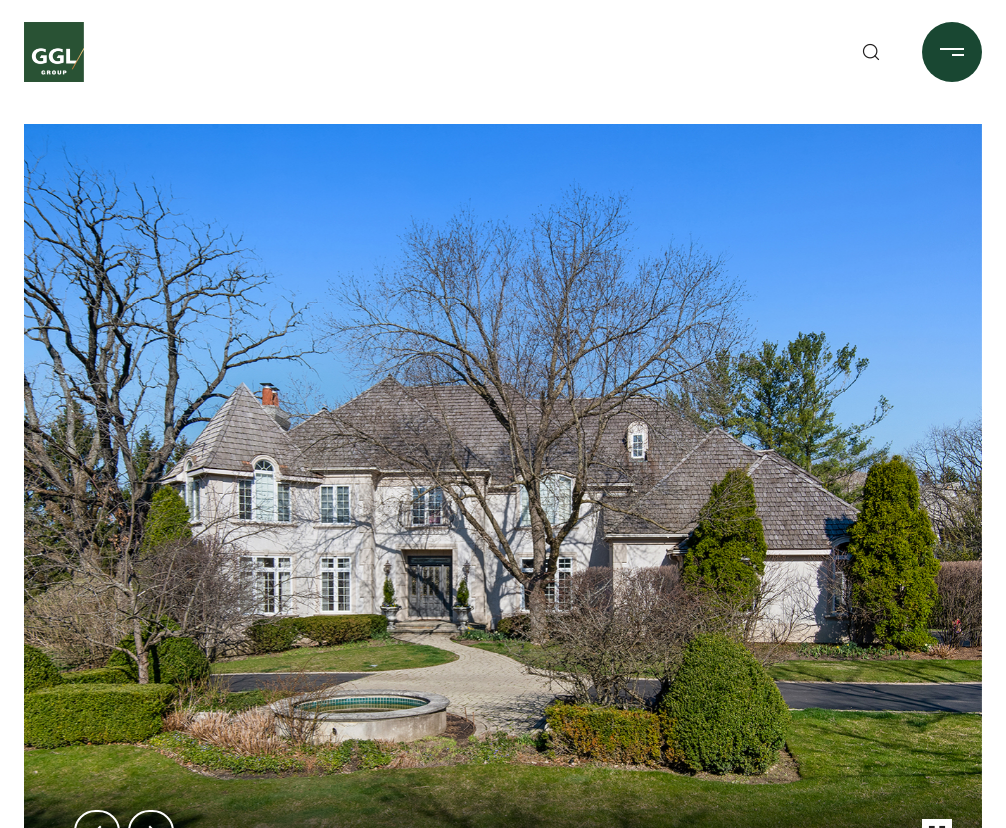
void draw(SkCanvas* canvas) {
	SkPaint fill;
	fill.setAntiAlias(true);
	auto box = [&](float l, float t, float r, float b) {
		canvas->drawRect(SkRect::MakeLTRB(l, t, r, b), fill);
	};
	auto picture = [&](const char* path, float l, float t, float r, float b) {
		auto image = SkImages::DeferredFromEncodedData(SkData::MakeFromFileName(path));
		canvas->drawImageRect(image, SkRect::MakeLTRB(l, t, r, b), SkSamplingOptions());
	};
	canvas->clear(0xFFFFFFFF);
	picture("image0.png", 24, 22, 84, 82);
	picture("image1.png", 862, 43, 880, 61);
	fill.setColor(0xFF194732);
	canvas->drawCircle(952, 52, 30, fill);
	fill.setColor(0xFFFFFFFF);
	box(940, 48, 964, 50);
	box(952, 54, 964, 56);
	picture("image2.png", 24, 124, 982, 828);
	{
		const SkColor colors[] = {0x00000000, 0xFF000000, 0xB3000000};
		const float stops[] = {0, 1, 1};
		const SkPoint ends[] = {{503, 764}, {503, 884}};
		fill.setShader(SkGradientShader::MakeLinear(ends, colors, stops, 3, SkTileMode::kClamp));
		fill.setAlpha(255);
	}
	box(24, 767, 982, 828);
	fill.setStyle(SkPaint::kStroke_Style);
	fill.setStrokeWidth(2);
	fill.setShader(nullptr);
	fill.setColor(0xFFFFFFFF);
	canvas->drawRoundRect(SkRect::MakeLTRB(75, 811, 119, 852), 22, 22, fill);
	fill.setStyle(SkPaint::kFill_Style);
	canvas->drawPath(SkPathBuilder().moveTo(93, 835.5f).lineTo(91.5f, 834).lineTo(100, 825.5f).lineTo(101.5f, 827).close().detach(), fill);
	fill.setStyle(SkPaint::kStroke_Style);
	canvas->drawRoundRect(SkRect::MakeLTRB(129, 811, 173, 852), 22, 22, fill);
	fill.setStyle(SkPaint::kFill_Style);
	canvas->drawPath(SkPathBuilder().moveTo(150, 825.5f).lineTo(158.5f, 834).lineTo(157, 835.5f).lineTo(148.5f, 827).close().detach(), fill);
	picture("image3.png", 922, 819, 952, 828);
}
